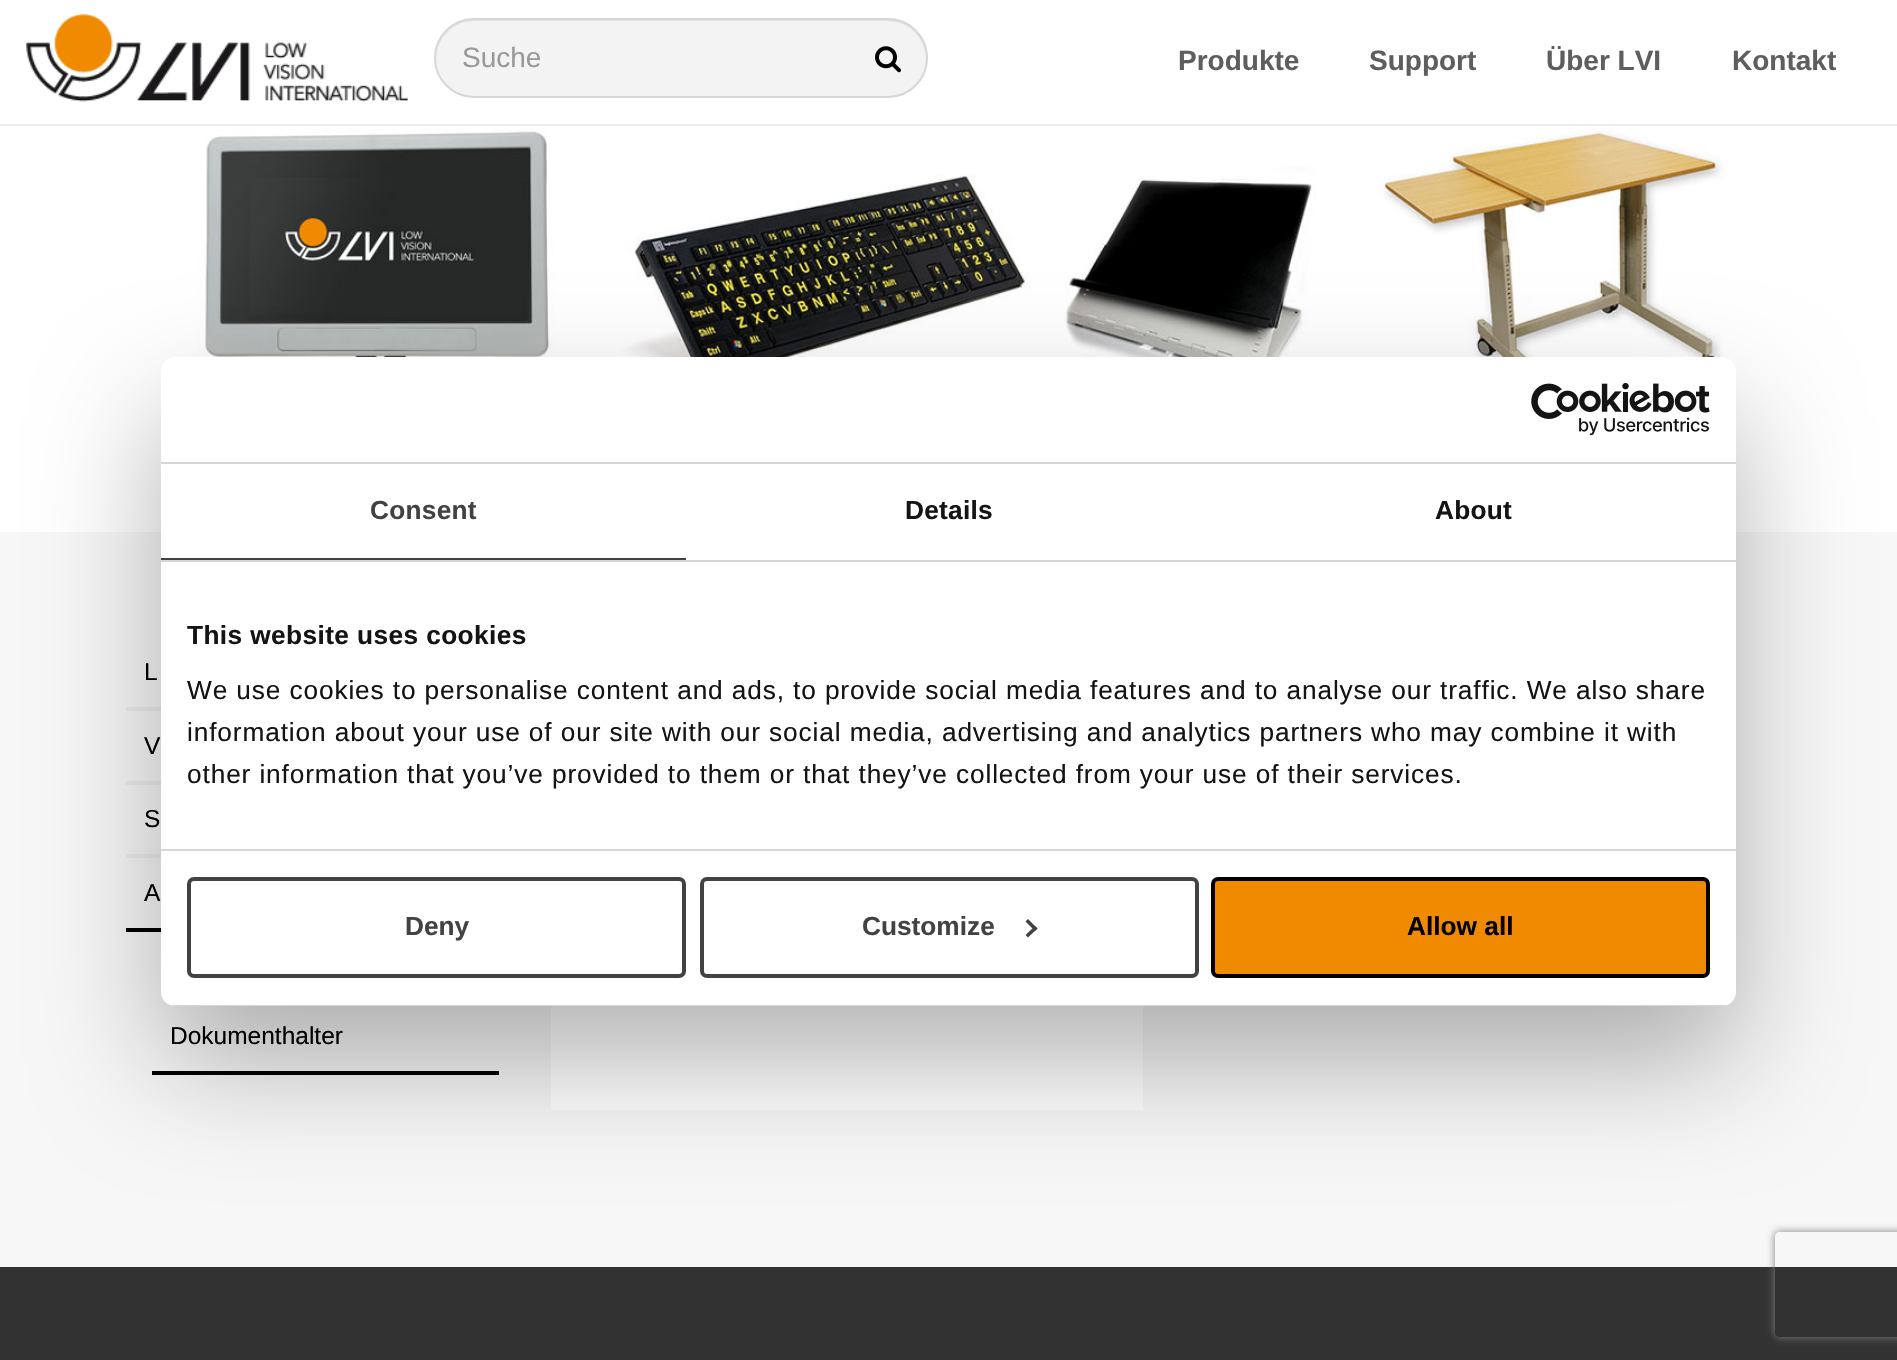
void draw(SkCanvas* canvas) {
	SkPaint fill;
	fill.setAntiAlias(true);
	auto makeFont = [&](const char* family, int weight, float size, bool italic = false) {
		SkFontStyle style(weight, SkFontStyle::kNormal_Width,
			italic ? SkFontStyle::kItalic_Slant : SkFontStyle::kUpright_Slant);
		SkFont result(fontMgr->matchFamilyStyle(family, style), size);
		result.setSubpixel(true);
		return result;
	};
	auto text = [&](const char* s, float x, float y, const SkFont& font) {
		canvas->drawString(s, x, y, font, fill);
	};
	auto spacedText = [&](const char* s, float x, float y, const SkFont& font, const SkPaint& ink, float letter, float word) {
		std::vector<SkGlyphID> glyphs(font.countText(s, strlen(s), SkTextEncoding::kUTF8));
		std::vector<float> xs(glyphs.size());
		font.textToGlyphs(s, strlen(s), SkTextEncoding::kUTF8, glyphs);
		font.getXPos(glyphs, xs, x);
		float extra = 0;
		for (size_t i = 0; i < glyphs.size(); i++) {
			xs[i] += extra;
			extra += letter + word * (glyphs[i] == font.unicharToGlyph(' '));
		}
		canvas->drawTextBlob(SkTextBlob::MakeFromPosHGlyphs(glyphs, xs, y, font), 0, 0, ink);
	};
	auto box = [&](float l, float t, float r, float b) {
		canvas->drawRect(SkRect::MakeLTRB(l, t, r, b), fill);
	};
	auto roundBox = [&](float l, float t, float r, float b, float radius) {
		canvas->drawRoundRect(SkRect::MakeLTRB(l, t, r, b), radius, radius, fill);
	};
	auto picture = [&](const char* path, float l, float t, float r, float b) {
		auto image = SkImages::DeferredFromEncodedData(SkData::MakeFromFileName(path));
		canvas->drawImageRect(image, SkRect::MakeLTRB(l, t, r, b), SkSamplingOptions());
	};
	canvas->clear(0xFFF7F7F7);
	fill.setColor(0xFFECECEC);
	box(0, 124, 1897, 126);
	fill.setColor(0xFFFFFFFF);
	box(0, 0, 1897, 124);
	picture("image0.png", 26, 14, 408, 102);
	fill.setColor(0xFFF3F3F3);
	roundBox(434, 18, 928, 98, 40);
	fill.setColor(0xFFE1E1E1);
	canvas->drawPath(SkPathBuilder().moveTo(474, 21).lineTo(887, 21).cubicTo(909, 21, 925, 37, 926, 59).lineTo(926, 58).cubicTo(926, 36, 909, 19, 888, 19).lineTo(474, 19).cubicTo(453, 19, 436, 36, 436, 58).lineTo(436, 59).cubicTo(437, 37, 453, 21, 474, 21).close().detach(), fill);
	fill.setStyle(SkPaint::kStroke_Style);
	fill.setStrokeWidth(2);
	fill.setColor(0xFFD7D7D8);
	canvas->drawRoundRect(SkRect::MakeLTRB(435, 19, 927, 97), 39, 39, fill);
	picture("image1.png", 875, 46, 901, 73);
	fill.setStyle(SkPaint::kFill_Style);
	fill.setColor(0xFFFFFFFF);
	box(0, 126, 1897, 532);
	picture("image3.png", 126, 126, 1771, 452);
	fill.setColor(0xFFECECEC);
	box(126, 707, 161, 711);
	box(126, 781, 161, 785);
	box(126, 854, 161, 858);
	fill.setColor(0xFF000000);
	box(126, 928, 161, 932);
	box(152, 1071, 499, 1075);
	fill.setColor(0xFFFFFFFF);
	box(551, 1006, 1143, 1110);
	fill.setColor(0x4D000000);
	fill.setMaskFilter(SkMaskFilter::MakeBlur(kNormal_SkBlurStyle, 59.5f));
	canvas->drawRoundRect(SkRect::MakeLTRB(161, 413, 1736, 1062), 14, 14, fill);
	fill.setMaskFilter(nullptr);
	fill.setColor(0xFFFFFFFF);
	roundBox(161, 357, 1736, 1006, 14);
	fill.setColor(0xFFD6D6D6);
	box(161, 462, 1736, 464);
	picture("image2.png", 1531, 383, 1710, 436);
	box(161, 560, 1736, 562);
	fill.setColor(0xFF424242);
	box(161, 558, 686, 560);
	fill.setColor(0xFFD6D6D6);
	box(161, 849, 1736, 851);
	canvas->save();
	canvas->clipPath(SkPathBuilder().moveTo(175, 357).lineTo(1722, 357).cubicTo(1729.5f, 357, 1736, 363.5f, 1736, 371).lineTo(1736, 992).cubicTo(1736, 999.5f, 1729.5f, 1006, 1722, 1006).lineTo(175, 1006).cubicTo(167.5f, 1006, 161, 999.5f, 161, 992).lineTo(161, 371).cubicTo(161, 363.5f, 167.5f, 357, 175, 357).close().detach(), true);
	box(170, 1005, 1727, 1006);
	canvas->restore();
	fill.setStyle(SkPaint::kStroke_Style);
	fill.setStrokeWidth(4);
	fill.setColor(0xFF424242);
	canvas->drawRoundRect(SkRect::MakeLTRB(189, 879, 684, 976), 5, 5, fill);
	canvas->drawRoundRect(SkRect::MakeLTRB(702, 879, 1197, 976), 5, 5, fill);
	fill.setStyle(SkPaint::kFill_Style);
	canvas->drawPath(SkPathBuilder().moveTo(1028, 919).lineTo(1037.5f, 928.5f).lineTo(1035, 931).lineTo(1025.5f, 921.5f).close().detach(), fill);
	canvas->drawPath(SkPathBuilder().moveTo(1035, 926).lineTo(1037.5f, 928.5f).lineTo(1028, 937.5f).lineTo(1025.5f, 935).close().detach(), fill);
	fill.setColor(0xFFF08A00);
	canvas->drawRoundRect(SkRect::MakeLTRB(1213, 879, 1708, 976), 5, 5, fill);
	fill.setStyle(SkPaint::kStroke_Style);
	fill.setColor(0xFF000000);
	canvas->drawRoundRect(SkRect::MakeLTRB(1213, 879, 1708, 976), 5, 5, fill);
	fill.setStyle(SkPaint::kFill_Style);
	fill.setColor(0xFF323232);
	box(0, 1267, 1897, 1360);
	canvas->save();
	canvas->clipPath(SkPathBuilder(SkPathFillType::kEvenOdd).moveTo(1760, 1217).lineTo(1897, 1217).lineTo(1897, 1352).lineTo(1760, 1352).close().moveTo(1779, 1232).lineTo(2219, 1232).cubicTo(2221, 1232, 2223, 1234, 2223, 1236).lineTo(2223, 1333).cubicTo(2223, 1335, 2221, 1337, 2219, 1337).lineTo(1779, 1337).cubicTo(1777, 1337, 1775, 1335, 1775, 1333).lineTo(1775, 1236).cubicTo(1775, 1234, 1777, 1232, 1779, 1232).close().detach(), true);
	fill.setColor(0xFF808080);
	fill.setMaskFilter(SkMaskFilter::MakeBlur(kNormal_SkBlurStyle, 4.5f));
	canvas->drawRoundRect(SkRect::MakeLTRB(1775, 1232, 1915, 1337), 4, 4, fill);
	fill.setMaskFilter(nullptr);
	canvas->restore();
	auto font1 = makeFont("Liberation Sans", 400, 28);
	fill.setColor(0xFF999999);
	text("Suche", 462, 67, font1);
	auto font2 = makeFont("Liberation Sans", 700, 28);
	fill.setColor(0xFF5E5E5E);
	text("Produkte", 1178, 70, font2);
	text("Support", 1369, 70, font2);
	text("Über LVI", 1546, 70, font2);
	text("Kontakt", 1732, 70, font2);
	auto font3 = makeFont("Liberation Sans", 700, 26.25f);
	fill.setColor(0xFF424242);
	spacedText("Consent", 370, 519, font3, fill, 0.25f, 0);
	fill.setColor(0xFF141414);
	spacedText("Details", 905, 519, font3, fill, 0.25f, 0);
	spacedText("About", 1435, 519, font3, fill, 0.25f, 0);
	spacedText("This website uses cookies", 187, 644, font3, fill, 0.4f, 0);
	auto font4 = makeFont("Liberation Sans", 400, 26.25f);
	spacedText("We use cookies to personalise content and ads, to provide social media features and to analyse our traffic. We also share", 187, 699, font4, fill, 0.88f, 0);
	spacedText("information about your use of our site with our social media, advertising and analytics partners who may combine it with", 187, 741, font4, fill, 0.88f, 0);
	spacedText("other information that you’ve provided to them or that they’ve collected from your use of their services.", 187, 783, font4, fill, 0.88f, 0);
	fill.setColor(0xFF424242);
	text("Deny", 405, 935, font3);
	text("Customize", 862, 935, font3);
	fill.setColor(0xFF000000);
	text("Allow all", 1407, 935, font3);
	auto font5 = makeFont("Liberation Sans", 400, 24.5f);
	text("L", 144, 680, font5);
	text("V", 144, 754, font5);
	text("S", 144, 827, font5);
	text("A", 144, 901, font5);
	text("Dokumenthalter", 170, 1044, font5);
}
